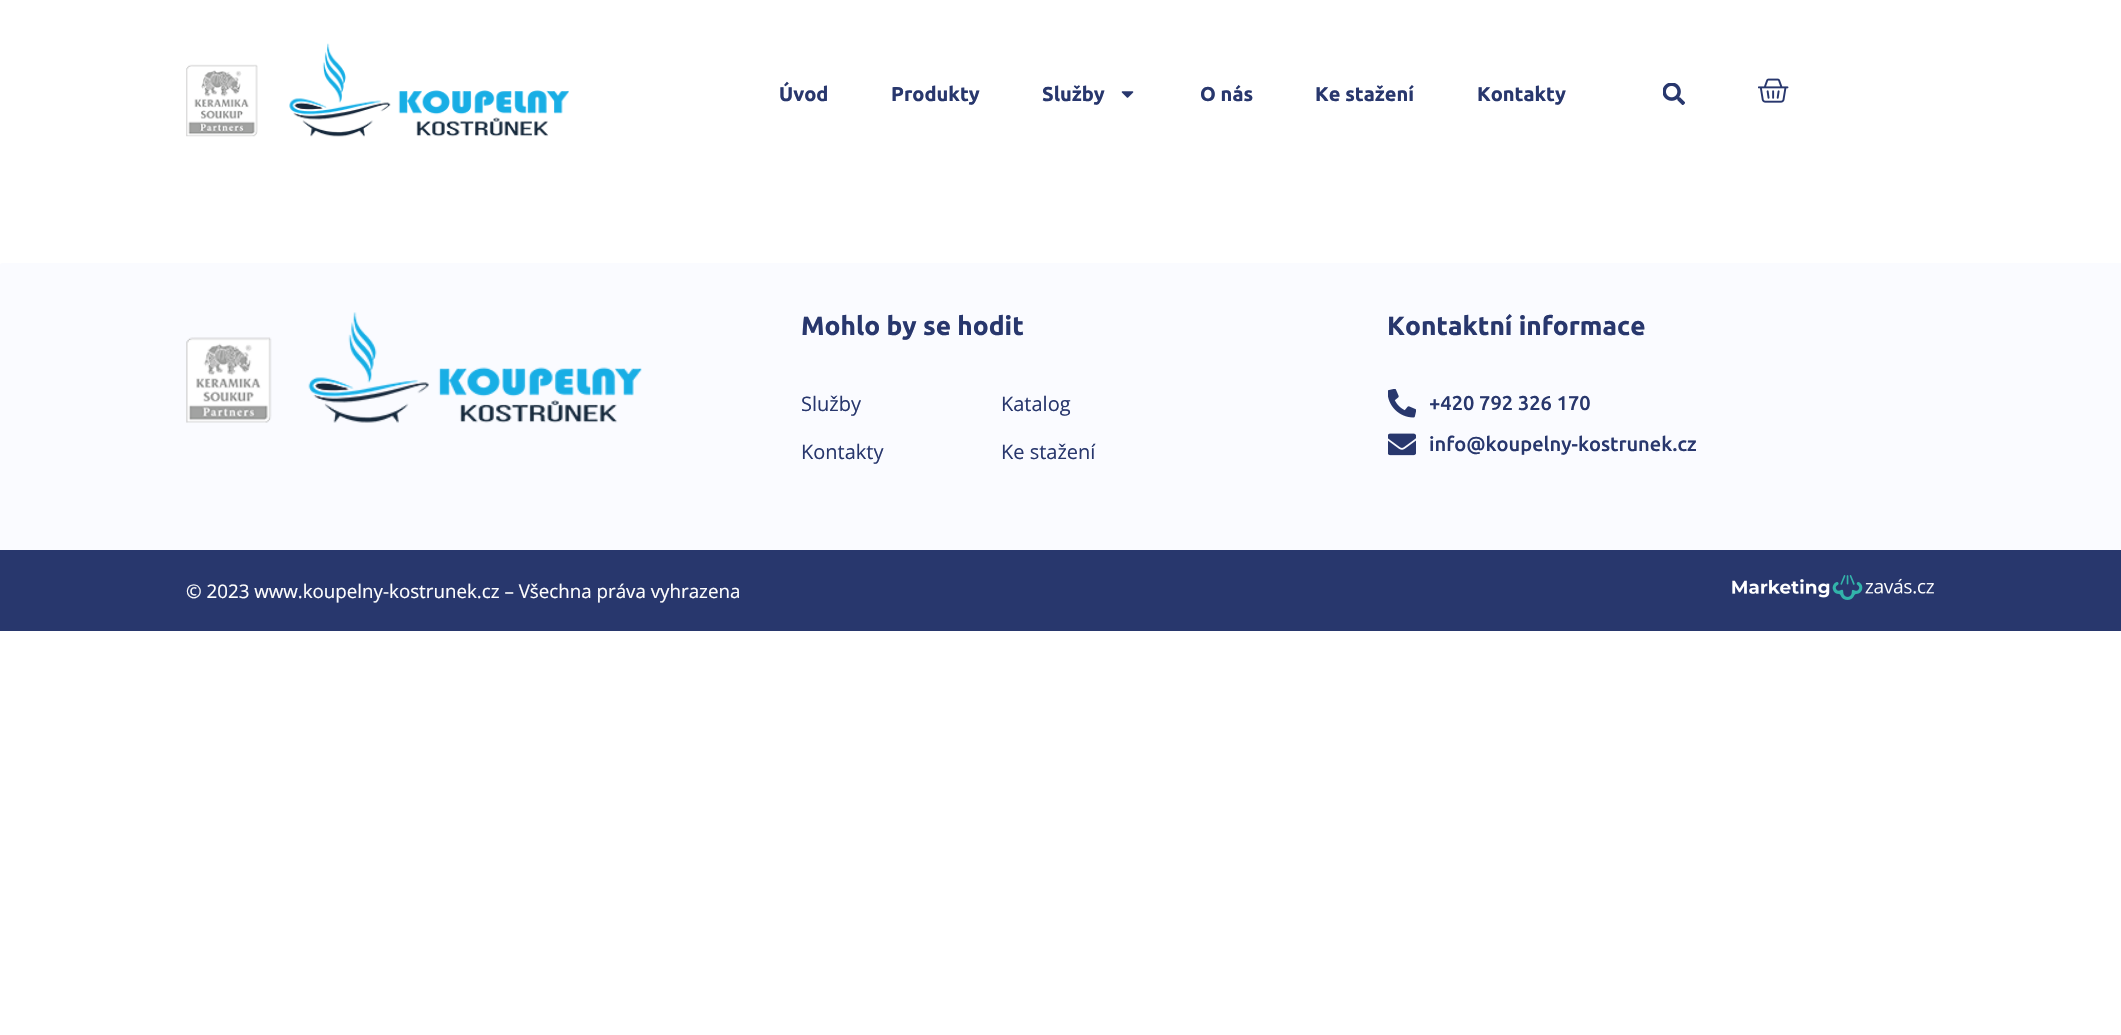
void draw(SkCanvas* canvas) {
	SkPaint fill;
	fill.setAntiAlias(true);
	auto makeFont = [&](const char* family, int weight, float size, bool italic = false) {
		SkFontStyle style(weight, SkFontStyle::kNormal_Width,
			italic ? SkFontStyle::kItalic_Slant : SkFontStyle::kUpright_Slant);
		SkFont result(fontMgr->matchFamilyStyle(family, style), size);
		result.setSubpixel(true);
		return result;
	};
	auto text = [&](const char* s, float x, float y, const SkFont& font) {
		canvas->drawString(s, x, y, font, fill);
	};
	auto box = [&](float l, float t, float r, float b) {
		canvas->drawRect(SkRect::MakeLTRB(l, t, r, b), fill);
	};
	auto picture = [&](const char* path, float l, float t, float r, float b) {
		auto image = SkImages::DeferredFromEncodedData(SkData::MakeFromFileName(path));
		canvas->drawImageRect(image, SkRect::MakeLTRB(l, t, r, b), SkSamplingOptions());
	};
	canvas->clear(0xFFFFFFFF);
	picture("image0.png", 186, 43, 569, 137);
	picture("image1.png", 1121, 91, 1134, 98);
	picture("image2.png", 1663, 83, 1685, 105);
	picture("image3.png", 1758, 78, 1789, 103);
	fill.setColor(0xFFFAFBFF);
	canvas->drawPath(SkPathBuilder().moveTo(2.5f, 263).lineTo(2121, 263).lineTo(2121, 550).lineTo(0, 550).lineTo(0, 265.5f).cubicTo(0, 264, 1, 263, 2.5f, 263).close().detach(), fill);
	picture("image4.png", 186, 312, 642, 423);
	picture("image5.png", 1388, 389, 1416, 418);
	picture("image6.png", 1388, 433, 1416, 456);
	fill.setColor(0xFF28376D);
	box(0, 550, 2121, 631);
	picture("image7.png", 1732, 575, 1934, 600);
	auto font1 = makeFont("Ubuntu", 700, 20);
	text("Úvod", 779, 101, font1);
	text("Produkty", 891, 101, font1);
	text("Služby", 1042, 101, font1);
	text("O nás", 1200, 101, font1);
	text("Ke stažení", 1315, 101, font1);
	text("Kontakty", 1477, 101, font1);
	auto font2 = makeFont("Ubuntu", 700, 26.25f);
	text("Mohlo by se hodit", 801, 335, font2);
	auto font3 = makeFont("Open Sans", 400, 20);
	text("Služby", 801, 411, font3);
	text("Kontakty", 801, 459, font3);
	text("Katalog", 1001, 411, font3);
	text("Ke stažení", 1001, 459, font3);
	text("Kontaktní informace", 1387, 335, font2);
	auto font4 = makeFont("Ubuntu", 500, 20);
	text("+420 792 326 170", 1429, 410, font4);
	text("info@koupelny-kostrunek.cz", 1429, 451, font4);
	auto font5 = makeFont("Open Sans", 400, 18.75f);
	fill.setColor(0xFFFFFFFF);
	text("© 2023 www.koupelny-kostrunek.cz – Všechna práva vyhrazena", 186, 598, font5);
}
